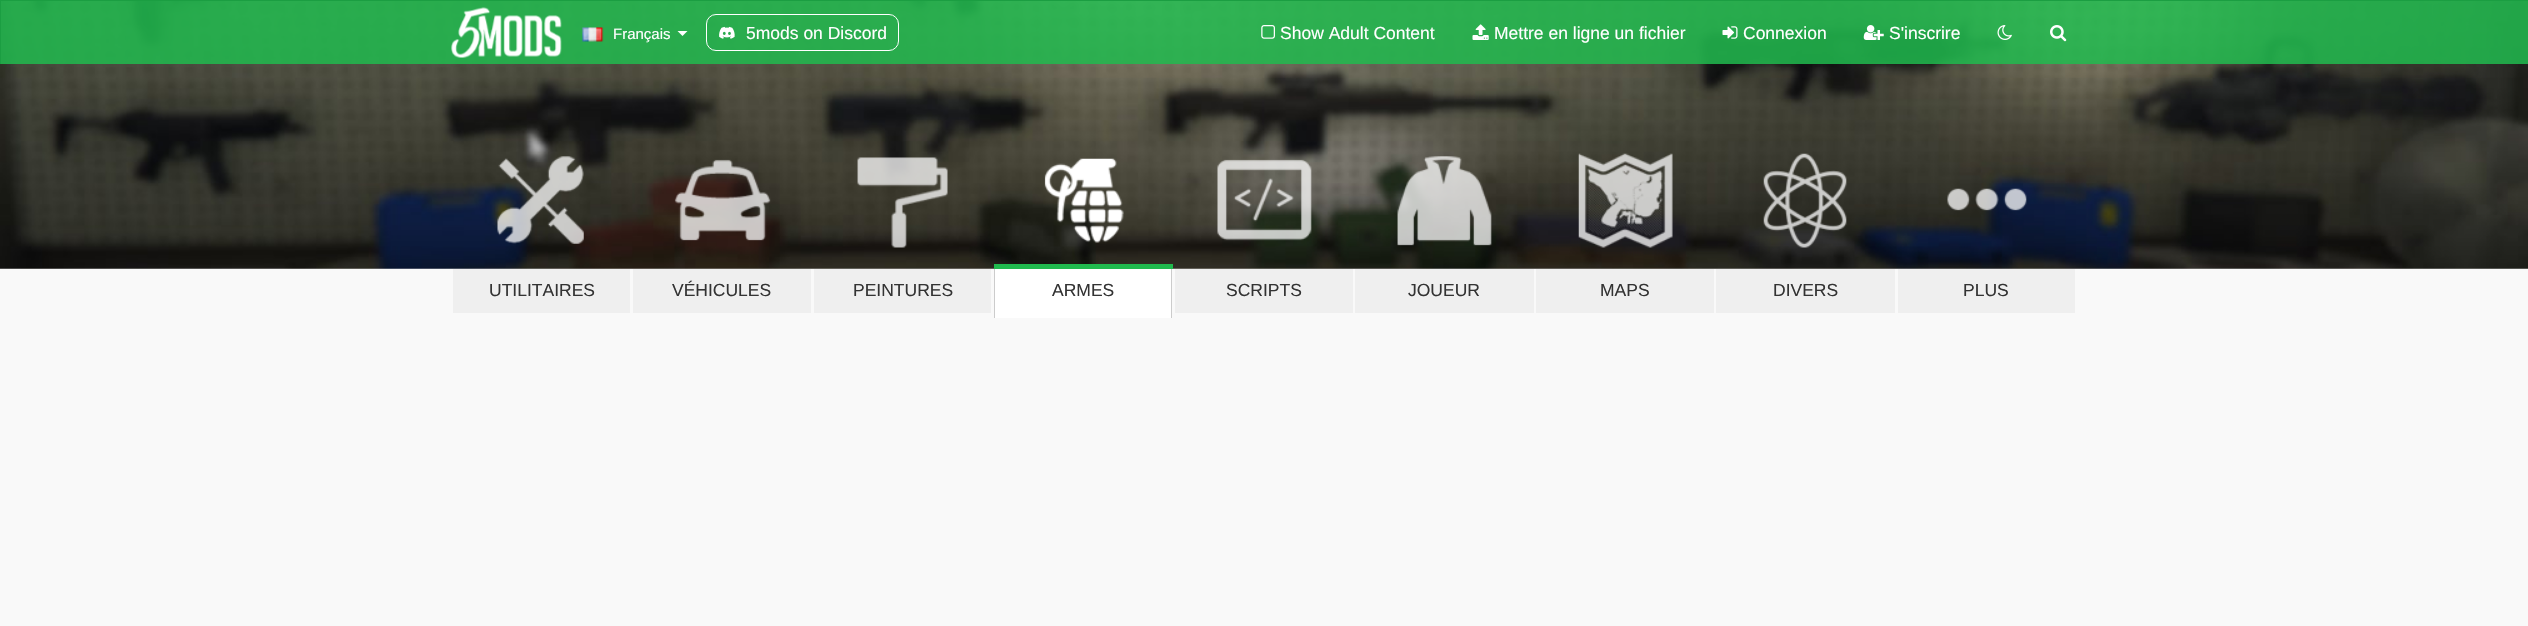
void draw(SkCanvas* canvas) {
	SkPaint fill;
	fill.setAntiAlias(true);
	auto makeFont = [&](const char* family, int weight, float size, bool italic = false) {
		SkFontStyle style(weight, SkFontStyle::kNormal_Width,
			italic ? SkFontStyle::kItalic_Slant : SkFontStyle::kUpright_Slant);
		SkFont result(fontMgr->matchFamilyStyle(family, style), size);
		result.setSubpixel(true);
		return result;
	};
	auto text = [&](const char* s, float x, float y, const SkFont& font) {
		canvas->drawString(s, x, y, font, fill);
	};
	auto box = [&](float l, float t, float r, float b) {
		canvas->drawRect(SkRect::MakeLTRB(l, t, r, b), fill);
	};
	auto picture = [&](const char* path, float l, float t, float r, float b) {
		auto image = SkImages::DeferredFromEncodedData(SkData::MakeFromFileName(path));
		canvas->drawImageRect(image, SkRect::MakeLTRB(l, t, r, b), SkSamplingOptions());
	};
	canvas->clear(0xFFF9F9F9);
	picture("image9.png", 0, 1, 2528, 269);
	fill.setColor(0xD920BA4E);
	box(1, 1, 2528, 64);
	fill.setColor(0xFF1B9E42);
	box(0, 0, 2528, 1);
	box(0, 0, 1, 64);
	picture("image0.png", 451, 7, 562, 58);
	picture("image1.png", 582, 27, 604, 42);
	fill.setColor(0xFFFFFFFF);
	canvas->drawPath(SkPathBuilder().moveTo(677.5f, 31).lineTo(687.5f, 31).lineTo(682.5f, 36).close().detach(), fill);
	fill.setStyle(SkPaint::kStroke_Style);
	fill.setStrokeWidth(1);
	canvas->drawRoundRect(SkRect::MakeLTRB(706.5f, 14.5f, 898.5f, 50.5f), 9.5f, 9.5f, fill);
	picture("image2.png", 719, 26, 735, 39);
	picture("image3.png", 1261, 25, 1275, 39);
	picture("image4.png", 1472, 24, 1489, 40);
	picture("image5.png", 1722, 26, 1738, 39);
	picture("image6.png", 1863, 25, 1884, 40);
	picture("image7.png", 1997, 25, 2012, 40);
	picture("image8.png", 2050, 25, 2067, 42);
	picture("image10.png", 497, 156, 584, 244);
	fill.setStyle(SkPaint::kFill_Style);
	fill.setColor(0xFFEFEFEF);
	box(453, 269, 630, 313);
	picture("image11.png", 674, 159, 771, 241);
	box(633, 269, 811, 313);
	picture("image12.png", 857, 157, 948, 248);
	box(814, 269, 991, 313);
	picture("image13.png", 1044, 158, 1124, 243);
	fill.setColor(0xFF20BA4E);
	box(994, 264, 1173, 269);
	fill.setColor(0xFFCCCCCC);
	box(1171, 269, 1172, 318);
	box(994, 269, 995, 318);
	fill.setColor(0xFFFFFFFF);
	box(995, 269, 1171, 318);
	picture("image14.png", 1217, 159, 1312, 241);
	fill.setColor(0xFFEFEFEF);
	box(1175, 269, 1353, 313);
	picture("image15.png", 1397, 156, 1492, 246);
	box(1355, 269, 1534, 313);
	picture("image16.png", 1578, 153, 1673, 248);
	box(1536, 269, 1714, 313);
	picture("image17.png", 1763, 153, 1847, 248);
	box(1716, 269, 1895, 313);
	picture("image18.png", 1947, 188, 2027, 211);
	box(1898, 269, 2075, 313);
	auto font1 = makeFont("Liberation Sans", 400, 15);
	fill.setColor(0xFFFFFFFF);
	text("Français", 613, 39, font1);
	auto font2 = makeFont("Liberation Sans", 400, 17.5f);
	text("5mods on Discord", 746, 39, font2);
	text("Show Adult Content", 1280, 39, font2);
	text("Mettre en ligne un fichier", 1494, 39, font2);
	text("Connexion", 1743, 39, font2);
	text("S'inscrire", 1889, 39, font2);
	fill.setColor(0xFF333333);
	text("UTILITAIRES", 489, 296, font2);
	text("VÉHICULES", 672, 296, font2);
	text("PEINTURES", 853, 296, font2);
	text("ARMES", 1052, 296, font2);
	text("SCRIPTS", 1226, 296, font2);
	text("JOUEUR", 1408, 296, font2);
	text("MAPS", 1600, 296, font2);
	text("DIVERS", 1773, 296, font2);
	text("PLUS", 1963, 296, font2);
}
